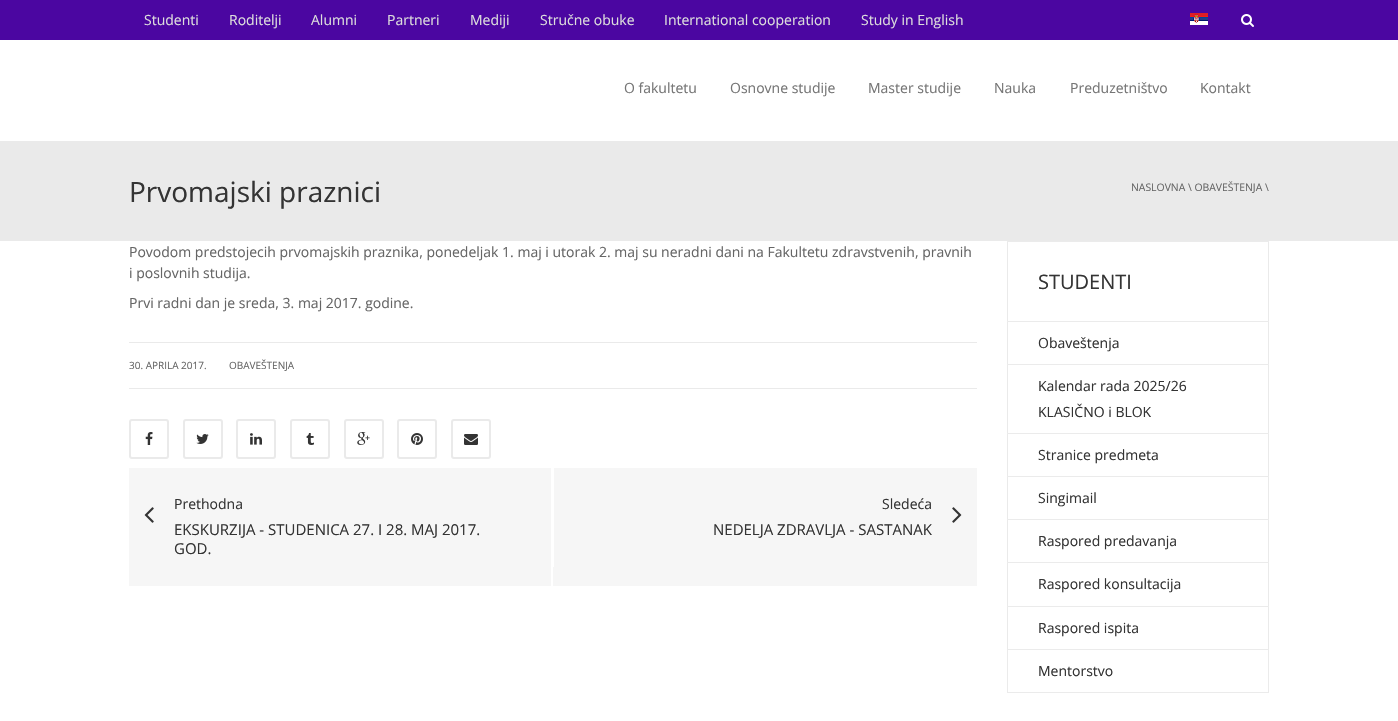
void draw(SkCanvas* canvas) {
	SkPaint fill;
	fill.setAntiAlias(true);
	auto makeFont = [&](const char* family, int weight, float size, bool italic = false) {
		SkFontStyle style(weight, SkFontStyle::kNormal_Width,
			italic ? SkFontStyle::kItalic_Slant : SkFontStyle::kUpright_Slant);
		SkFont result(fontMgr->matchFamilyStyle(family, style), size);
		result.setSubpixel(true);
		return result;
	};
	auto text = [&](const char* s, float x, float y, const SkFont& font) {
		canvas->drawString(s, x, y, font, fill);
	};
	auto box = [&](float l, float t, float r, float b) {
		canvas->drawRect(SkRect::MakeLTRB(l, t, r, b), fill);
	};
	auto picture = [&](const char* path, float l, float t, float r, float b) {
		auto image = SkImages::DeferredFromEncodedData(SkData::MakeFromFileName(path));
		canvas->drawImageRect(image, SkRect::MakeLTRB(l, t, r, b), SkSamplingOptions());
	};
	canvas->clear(0xFFFFFFFF);
	fill.setColor(0xFF4B06A1);
	box(0, 0, 1398, 40);
	picture("image0.png", 1190, 13, 1208, 25);
	picture("image1.png", 1241, 14, 1254, 27);
	fill.setColor(0xFFEAEAEA);
	box(0, 141, 1398, 241);
	box(129, 342, 977, 343);
	box(129, 388, 977, 389);
	fill.setStyle(SkPaint::kStroke_Style);
	fill.setStrokeWidth(2);
	canvas->drawRoundRect(SkRect::MakeLTRB(130, 420, 168, 458), 2, 2, fill);
	picture("image2.png", 145, 432, 153, 445);
	canvas->drawRoundRect(SkRect::MakeLTRB(184, 420, 222, 458), 2, 2, fill);
	picture("image3.png", 196, 434, 209, 444);
	canvas->drawRoundRect(SkRect::MakeLTRB(237, 420, 275, 458), 2, 2, fill);
	picture("image4.png", 250, 433, 262, 445);
	canvas->drawRoundRect(SkRect::MakeLTRB(291, 420, 329, 458), 2, 2, fill);
	picture("image5.png", 306, 433, 314, 445);
	canvas->drawRoundRect(SkRect::MakeLTRB(345, 420, 383, 458), 2, 2, fill);
	picture("image6.png", 357, 432, 370, 445);
	canvas->drawRoundRect(SkRect::MakeLTRB(398, 420, 436, 458), 2, 2, fill);
	picture("image7.png", 411, 433, 423, 445);
	canvas->drawRoundRect(SkRect::MakeLTRB(452, 420, 490, 458), 2, 2, fill);
	picture("image8.png", 464, 434, 478, 445);
	fill.setStyle(SkPaint::kFill_Style);
	fill.setColor(0xFFF6F6F6);
	box(129, 468, 977, 586);
	fill.setColor(0xFFFFFFFF);
	box(551, 468, 553, 586);
	picture("image9.png", 144, 507, 154, 523);
	box(553, 468, 554, 567);
	picture("image10.png", 952, 507, 962, 523);
	fill.setColor(0xFFEBEBEB);
	canvas->drawPath(SkPathBuilder().moveTo(1007, 241).lineTo(1269, 241).lineTo(1268, 242).lineTo(1008, 242).close().detach(), fill);
	fill.setColor(0x1A343434);
	canvas->drawPath(SkPathBuilder().moveTo(1269, 241).lineTo(1269, 321).lineTo(1268, 321).lineTo(1268, 242).close().detach(), fill);
	canvas->drawPath(SkPathBuilder().moveTo(1007, 321).lineTo(1007, 241).lineTo(1008, 242).lineTo(1008, 321).close().detach(), fill);
	fill.setColor(0xFFEBEBEB);
	canvas->drawPath(SkPathBuilder().moveTo(1007, 321).lineTo(1269, 321).lineTo(1268, 322).lineTo(1008, 322).close().detach(), fill);
	fill.setColor(0x1A343434);
	canvas->drawPath(SkPathBuilder().moveTo(1269, 321).lineTo(1269, 364).lineTo(1268, 364).lineTo(1268, 322).close().detach(), fill);
	canvas->drawPath(SkPathBuilder().moveTo(1007, 364).lineTo(1007, 321).lineTo(1008, 322).lineTo(1008, 364).close().detach(), fill);
	fill.setColor(0xFFEBEBEB);
	canvas->drawPath(SkPathBuilder().moveTo(1007, 364).lineTo(1269, 364).lineTo(1268, 365).lineTo(1008, 365).close().detach(), fill);
	fill.setColor(0x1A343434);
	canvas->drawPath(SkPathBuilder().moveTo(1269, 364).lineTo(1269, 433).lineTo(1268, 433).lineTo(1268, 365).close().detach(), fill);
	canvas->drawPath(SkPathBuilder().moveTo(1007, 433).lineTo(1007, 364).lineTo(1008, 365).lineTo(1008, 433).close().detach(), fill);
	fill.setColor(0xFFEBEBEB);
	canvas->drawPath(SkPathBuilder().moveTo(1007, 433).lineTo(1269, 433).lineTo(1268, 434).lineTo(1008, 434).close().detach(), fill);
	fill.setColor(0x1A343434);
	canvas->drawPath(SkPathBuilder().moveTo(1269, 433).lineTo(1269, 476).lineTo(1268, 476).lineTo(1268, 434).close().detach(), fill);
	canvas->drawPath(SkPathBuilder().moveTo(1007, 476).lineTo(1007, 433).lineTo(1008, 434).lineTo(1008, 476).close().detach(), fill);
	fill.setColor(0xFFEBEBEB);
	canvas->drawPath(SkPathBuilder().moveTo(1007, 476).lineTo(1269, 476).lineTo(1268, 477).lineTo(1008, 477).close().detach(), fill);
	fill.setColor(0x1A343434);
	canvas->drawPath(SkPathBuilder().moveTo(1269, 476).lineTo(1269, 519).lineTo(1268, 519).lineTo(1268, 477).close().detach(), fill);
	canvas->drawPath(SkPathBuilder().moveTo(1007, 519).lineTo(1007, 476).lineTo(1008, 477).lineTo(1008, 519).close().detach(), fill);
	fill.setColor(0xFFEBEBEB);
	canvas->drawPath(SkPathBuilder().moveTo(1007, 519).lineTo(1269, 519).lineTo(1268, 520).lineTo(1008, 520).close().detach(), fill);
	fill.setColor(0x1A343434);
	canvas->drawPath(SkPathBuilder().moveTo(1269, 519).lineTo(1269, 562).lineTo(1268, 562).lineTo(1268, 520).close().detach(), fill);
	canvas->drawPath(SkPathBuilder().moveTo(1007, 562).lineTo(1007, 519).lineTo(1008, 520).lineTo(1008, 562).close().detach(), fill);
	fill.setColor(0xFFEBEBEB);
	canvas->drawPath(SkPathBuilder().moveTo(1007, 562).lineTo(1269, 562).lineTo(1268, 563).lineTo(1008, 563).close().detach(), fill);
	fill.setColor(0x1A343434);
	canvas->drawPath(SkPathBuilder().moveTo(1269, 562).lineTo(1269, 606).lineTo(1268, 606).lineTo(1268, 563).close().detach(), fill);
	canvas->drawPath(SkPathBuilder().moveTo(1007, 606).lineTo(1007, 562).lineTo(1008, 563).lineTo(1008, 606).close().detach(), fill);
	fill.setColor(0xFFEBEBEB);
	canvas->drawPath(SkPathBuilder().moveTo(1007, 606).lineTo(1269, 606).lineTo(1268, 607).lineTo(1008, 607).close().detach(), fill);
	fill.setColor(0x1A343434);
	canvas->drawPath(SkPathBuilder().moveTo(1269, 606).lineTo(1269, 649).lineTo(1268, 649).lineTo(1268, 607).close().detach(), fill);
	canvas->drawPath(SkPathBuilder().moveTo(1007, 649).lineTo(1007, 606).lineTo(1008, 607).lineTo(1008, 649).close().detach(), fill);
	fill.setStyle(SkPaint::kStroke_Style);
	fill.setStrokeWidth(1);
	fill.setColor(0xFFEBEBEB);
	canvas->drawRect(SkRect::MakeLTRB(1007.5f, 649.5f, 1268.5f, 692.5f), fill);
	auto font1 = makeFont("Open Sans", 400, 14);
	fill.setStyle(SkPaint::kFill_Style);
	fill.setColor(0xFFDDDDDD);
	text("Studenti", 144, 25, font1);
	text("Roditelji", 229, 25, font1);
	text("Alumni", 311, 25, font1);
	text("Partneri", 387, 25, font1);
	text("Mediji", 470, 25, font1);
	text("Stručne obuke", 540, 25, font1);
	text("International cooperation", 664, 25, font1);
	text("Study in English", 861, 25, font1);
	fill.setColor(0xFF757575);
	text("O fakultetu", 624, 93, font1);
	text("Osnovne studije", 730, 93, font1);
	text("Master studije", 868, 93, font1);
	text("Nauka", 994, 93, font1);
	text("Preduzetništvo", 1070, 93, font1);
	text("Kontakt", 1200, 93, font1);
	auto font2 = makeFont("Open Sans", 400, 28);
	fill.setColor(0xFF343434);
	text("Prvomajski praznici", 129, 202, font2);
	auto font3 = makeFont("Open Sans", 400, 10.4f);
	fill.setColor(0xFF666666);
	text("NASLOVNA \\ OBAVEŠTENJA \\", 1131, 191, font3);
	text("Povodom predstojecih prvomajskih praznika, ponedeljak 1. maj i utorak 2. maj su neradni dani na Fakultetu zdravstvenih, pravnih", 129, 257, font1);
	text("i poslovnih studija.", 129, 278, font1);
	text("Prvi radni dan je sreda, 3. maj 2017. godine.", 129, 308, font1);
	auto font4 = makeFont("Open Sans", 400, 10);
	text("30. APRILA 2017.", 129, 369, font4);
	text("OBAVEŠTENJA", 229, 369, font4);
	fill.setColor(0xFF343434);
	text("Prethodna", 174, 509, font1);
	auto font5 = makeFont("Open Sans", 400, 15);
	text("EKSKURZIJA - STUDENICA 27. I 28. MAJ 2017.", 174, 535, font5);
	text("GOD.", 174, 554, font5);
	text("Sledeća", 882, 509, font1);
	text("NEDELJA ZDRAVLJA - SASTANAK", 713, 535, font5);
	auto font6 = makeFont("Open Sans", 400, 20);
	text("STUDENTI", 1038, 289, font6);
	text("Obaveštenja", 1038, 348, font1);
	text("Kalendar rada 2025/26", 1038, 391, font1);
	text("KLASIČNO i BLOK", 1038, 417, font1);
	text("Stranice predmeta", 1038, 460, font1);
	text("Singimail", 1038, 503, font1);
	text("Raspored predavanja", 1038, 546, font1);
	text("Raspored konsultacija", 1038, 589, font1);
	text("Raspored ispita", 1038, 633, font1);
	text("Mentorstvo", 1038, 676, font1);
}
